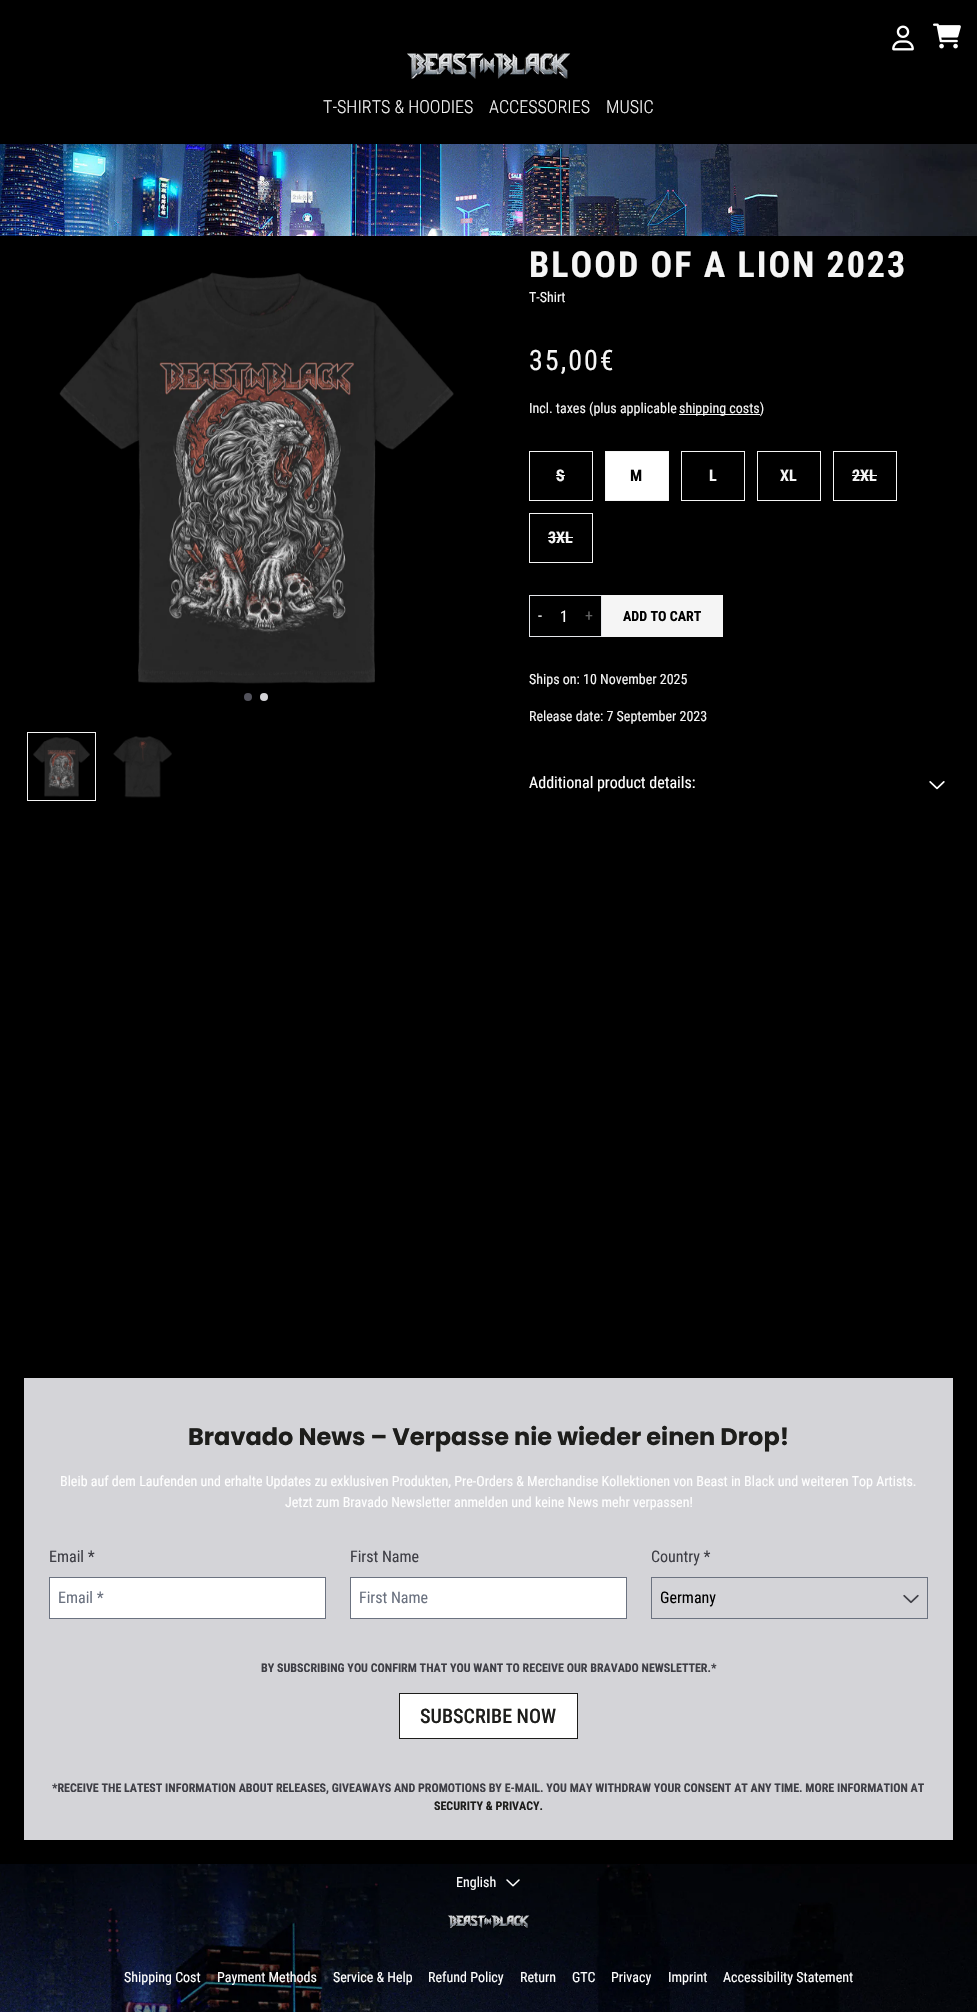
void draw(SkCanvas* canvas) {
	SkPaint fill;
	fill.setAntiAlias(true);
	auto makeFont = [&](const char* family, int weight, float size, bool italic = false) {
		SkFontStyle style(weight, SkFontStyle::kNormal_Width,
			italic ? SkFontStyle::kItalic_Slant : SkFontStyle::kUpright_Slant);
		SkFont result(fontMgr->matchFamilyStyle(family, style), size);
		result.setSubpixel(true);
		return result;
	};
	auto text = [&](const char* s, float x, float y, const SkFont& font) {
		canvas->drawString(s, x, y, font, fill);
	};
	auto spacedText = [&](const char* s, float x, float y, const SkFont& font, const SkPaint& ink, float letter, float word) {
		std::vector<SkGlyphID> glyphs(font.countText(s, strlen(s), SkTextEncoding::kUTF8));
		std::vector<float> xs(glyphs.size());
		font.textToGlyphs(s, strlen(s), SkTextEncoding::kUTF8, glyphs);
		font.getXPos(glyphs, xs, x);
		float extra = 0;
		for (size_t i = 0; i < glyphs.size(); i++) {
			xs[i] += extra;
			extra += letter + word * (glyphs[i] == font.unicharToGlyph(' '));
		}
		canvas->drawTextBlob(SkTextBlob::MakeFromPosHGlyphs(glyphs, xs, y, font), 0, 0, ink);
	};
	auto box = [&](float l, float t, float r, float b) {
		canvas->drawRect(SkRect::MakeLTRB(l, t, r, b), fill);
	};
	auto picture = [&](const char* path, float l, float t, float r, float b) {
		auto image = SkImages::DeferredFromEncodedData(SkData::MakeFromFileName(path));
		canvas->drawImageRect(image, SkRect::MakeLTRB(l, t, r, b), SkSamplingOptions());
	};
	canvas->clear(0xFF000000);
	picture("image0.png", 892, 25, 914, 51);
	picture("image1.png", 933, 23, 961, 49);
	picture("image2.png", 407, 53, 571, 79);
	picture("image3.png", 0, 144, 977, 236);
	picture("image4.png", 59, 272, 454, 684);
	fill.setColor(0xFF52525B);
	canvas->drawCircle(248, 697, 4, fill);
	fill.setColor(0xFFD4D4D8);
	canvas->drawCircle(264, 697, 4, fill);
	fill.setStyle(SkPaint::kStroke_Style);
	fill.setStrokeWidth(1);
	fill.setColor(0xFFF5F5F5);
	canvas->drawRect(SkRect::MakeLTRB(27.5f, 732.5f, 95.5f, 800.5f), fill);
	picture("image5.png", 33, 737, 90, 797);
	picture("image6.png", 113, 736, 172, 798);
	fill.setStyle(SkPaint::kFill_Style);
	box(679, 414, 760, 415);
	fill.setStyle(SkPaint::kStroke_Style);
	canvas->drawRect(SkRect::MakeLTRB(529.5f, 451.5f, 592.5f, 500.5f), fill);
	fill.setStyle(SkPaint::kFill_Style);
	box(556, 475, 565, 476);
	fill.setColor(0xFFFFFFFF);
	canvas->drawRect(SkRect::MakeLTRB(605.5f, 451.5f, 668.5f, 500.5f), fill);
	fill.setStyle(SkPaint::kStroke_Style);
	fill.setColor(0xFFF5F5F5);
	canvas->drawRect(SkRect::MakeLTRB(605.5f, 451.5f, 668.5f, 500.5f), fill);
	canvas->drawRect(SkRect::MakeLTRB(681.5f, 451.5f, 744.5f, 500.5f), fill);
	canvas->drawRect(SkRect::MakeLTRB(757.5f, 451.5f, 820.5f, 500.5f), fill);
	canvas->drawRect(SkRect::MakeLTRB(833.5f, 451.5f, 896.5f, 500.5f), fill);
	fill.setStyle(SkPaint::kFill_Style);
	box(852, 475, 877, 476);
	fill.setStyle(SkPaint::kStroke_Style);
	canvas->drawRect(SkRect::MakeLTRB(529.5f, 513.5f, 592.5f, 562.5f), fill);
	fill.setStyle(SkPaint::kFill_Style);
	box(548, 537, 573, 538);
	fill.setStyle(SkPaint::kStroke_Style);
	fill.setColor(0xFFE5E7EB);
	canvas->drawRect(SkRect::MakeLTRB(529.5f, 595.5f, 601.5f, 636.5f), fill);
	fill.setStyle(SkPaint::kFill_Style);
	fill.setColor(0xFFF5F5F5);
	box(602, 595, 723, 637);
	picture("image7.png", 929, 781, 945, 790);
	fill.setColor(0xFFD4D4D8);
	box(24, 1378, 953, 1840);
	fill.setColor(0xFFFFFFFF);
	canvas->drawRect(SkRect::MakeLTRB(49.5f, 1577.5f, 325.5f, 1618.5f), fill);
	fill.setStyle(SkPaint::kStroke_Style);
	fill.setColor(0xFF6B7280);
	canvas->drawRect(SkRect::MakeLTRB(49.5f, 1577.5f, 325.5f, 1618.5f), fill);
	fill.setStyle(SkPaint::kFill_Style);
	fill.setColor(0xFFFFFFFF);
	canvas->drawRect(SkRect::MakeLTRB(350.5f, 1577.5f, 626.5f, 1618.5f), fill);
	fill.setStyle(SkPaint::kStroke_Style);
	fill.setColor(0xFF6B7280);
	canvas->drawRect(SkRect::MakeLTRB(350.5f, 1577.5f, 626.5f, 1618.5f), fill);
	canvas->drawRect(SkRect::MakeLTRB(651.5f, 1577.5f, 927.5f, 1618.5f), fill);
	picture("image8.png", 903, 1594, 919, 1604);
	fill.setColor(0xFF1D1D1B);
	canvas->drawRect(SkRect::MakeLTRB(399.5f, 1693.5f, 577.5f, 1738.5f), fill);
	fill.setStyle(SkPaint::kFill_Style);
	fill.setColor(0xFFFFFFFF);
	box(400, 1694, 577, 1738);
	picture("image9.png", 0, 1864, 977, 2012);
	picture("image10.png", 506, 1879, 520, 1887);
	picture("image11.png", 447, 1915, 530, 1929);
	auto font1 = makeFont("Roboto Condensed", 300, 18);
	fill.setColor(0xFFF5F5F5);
	text("T-SHIRTS & HOODIES", 323, 113, font1);
	text("ACCESSORIES", 489, 113, font1);
	text("MUSIC", 606, 113, font1);
	auto font2 = makeFont("Roboto Condensed", 700, 36);
	spacedText("BLOOD OF A LION 2023", 529, 277, font2, fill, 2, 0);
	auto font3 = makeFont("Roboto Condensed", 400, 14);
	text("T-Shirt", 529, 302, font3);
	auto font4 = makeFont("Roboto Condensed", 400, 28);
	spacedText("35,00€", 529, 370, font4, fill, 2, 0);
	text("Incl. taxes (plus applicable", 529, 413, font3);
	text("shipping costs)", 679, 413, font3);
	auto font5 = makeFont("Roboto Condensed", 700, 16);
	text("S", 556, 481, font5);
	fill.setColor(0xFF000000);
	text("M", 630, 481, font5);
	fill.setColor(0xFFF5F5F5);
	text("L", 709, 481, font5);
	text("XL", 780, 481, font5);
	text("2XL", 852, 481, font5);
	text("3XL", 548, 543, font5);
	auto font6 = makeFont("Roboto Condensed", 400, 16);
	text("-", 538, 621, font6);
	fill.setColor(0xFFFFFFFF);
	text("1", 560, 622, font6);
	fill.setColor(0xFF626262);
	text("+", 585, 621, font6);
	auto font7 = makeFont("Roboto Condensed", 700, 14);
	fill.setColor(0xFF000000);
	text("ADD TO CART", 623, 621, font7);
	fill.setColor(0xFFF5F5F5);
	text("Ships on: 10 November 2025", 529, 684, font3);
	text("Release date: 7 September 2023", 529, 721, font3);
	fill.setColor(0xFFFFFFFF);
	text("Additional product details:", 529, 788, font6);
	auto font8 = makeFont("Poppins", 700, 24);
	fill.setColor(0xFF1D1D1B);
	text("Bravado News – Verpasse nie wieder einen Drop!", 188, 1445, font8);
	fill.setColor(0xFFFFFFFF);
	text("Bleib auf dem Laufenden und erhalte Updates zu exklusiven Produkten, Pre-Orders & Merchandise Kollektionen von Beast in Black und weiteren Top Artists.", 60, 1486, font3);
	text("Jetzt zum Bravado Newsletter anmelden und keine News mehr verpassen!", 285, 1507, font3);
	fill.setColor(0xFF3F3F46);
	text("Email *", 49, 1562, font6);
	fill.setColor(0xFF6B7280);
	text("Email *", 58, 1603, font6);
	fill.setColor(0xFF3F3F46);
	text("First Name", 350, 1562, font6);
	fill.setColor(0xFF6B7280);
	text("First Name", 359, 1603, font6);
	fill.setColor(0xFF3F3F46);
	text("Country *", 651, 1562, font6);
	fill.setColor(0xFF000000);
	text("Germany", 660, 1603, font6);
	auto font9 = makeFont("Roboto Condensed", 700, 12);
	fill.setColor(0xFF3F3F46);
	text("BY SUBSCRIBING YOU CONFIRM THAT YOU WANT TO RECEIVE OUR BRAVADO NEWSLETTER.*", 261, 1672, font9);
	auto font10 = makeFont("Roboto Condensed", 500, 20);
	fill.setColor(0xFF1D1D1B);
	text("SUBSCRIBE NOW", 420, 1723, font10);
	fill.setColor(0xFF3F3F46);
	text("*RECEIVE THE LATEST INFORMATION ABOUT RELEASES, GIVEAWAYS AND PROMOTIONS BY E-MAIL. YOU MAY WITHDRAW YOUR CONSENT AT ANY TIME. MORE INFORMATION AT", 52, 1792, font9);
	fill.setColor(0xFF1D1D1B);
	text("SECURITY & PRIVACY.", 434, 1810, font9);
	fill.setColor(0xFFFFFFFF);
	text("English", 456, 1887, font3);
	text("Shipping Cost", 124, 1982, font3);
	text("Payment Methods", 217, 1982, font3);
	text("Service & Help", 333, 1982, font3);
	text("Refund Policy", 428, 1982, font3);
	text("Return", 520, 1982, font3);
	text("GTC", 572, 1982, font3);
	text("Privacy", 611, 1982, font3);
	text("Imprint", 668, 1982, font3);
	text("Accessibility Statement", 723, 1982, font3);
}
